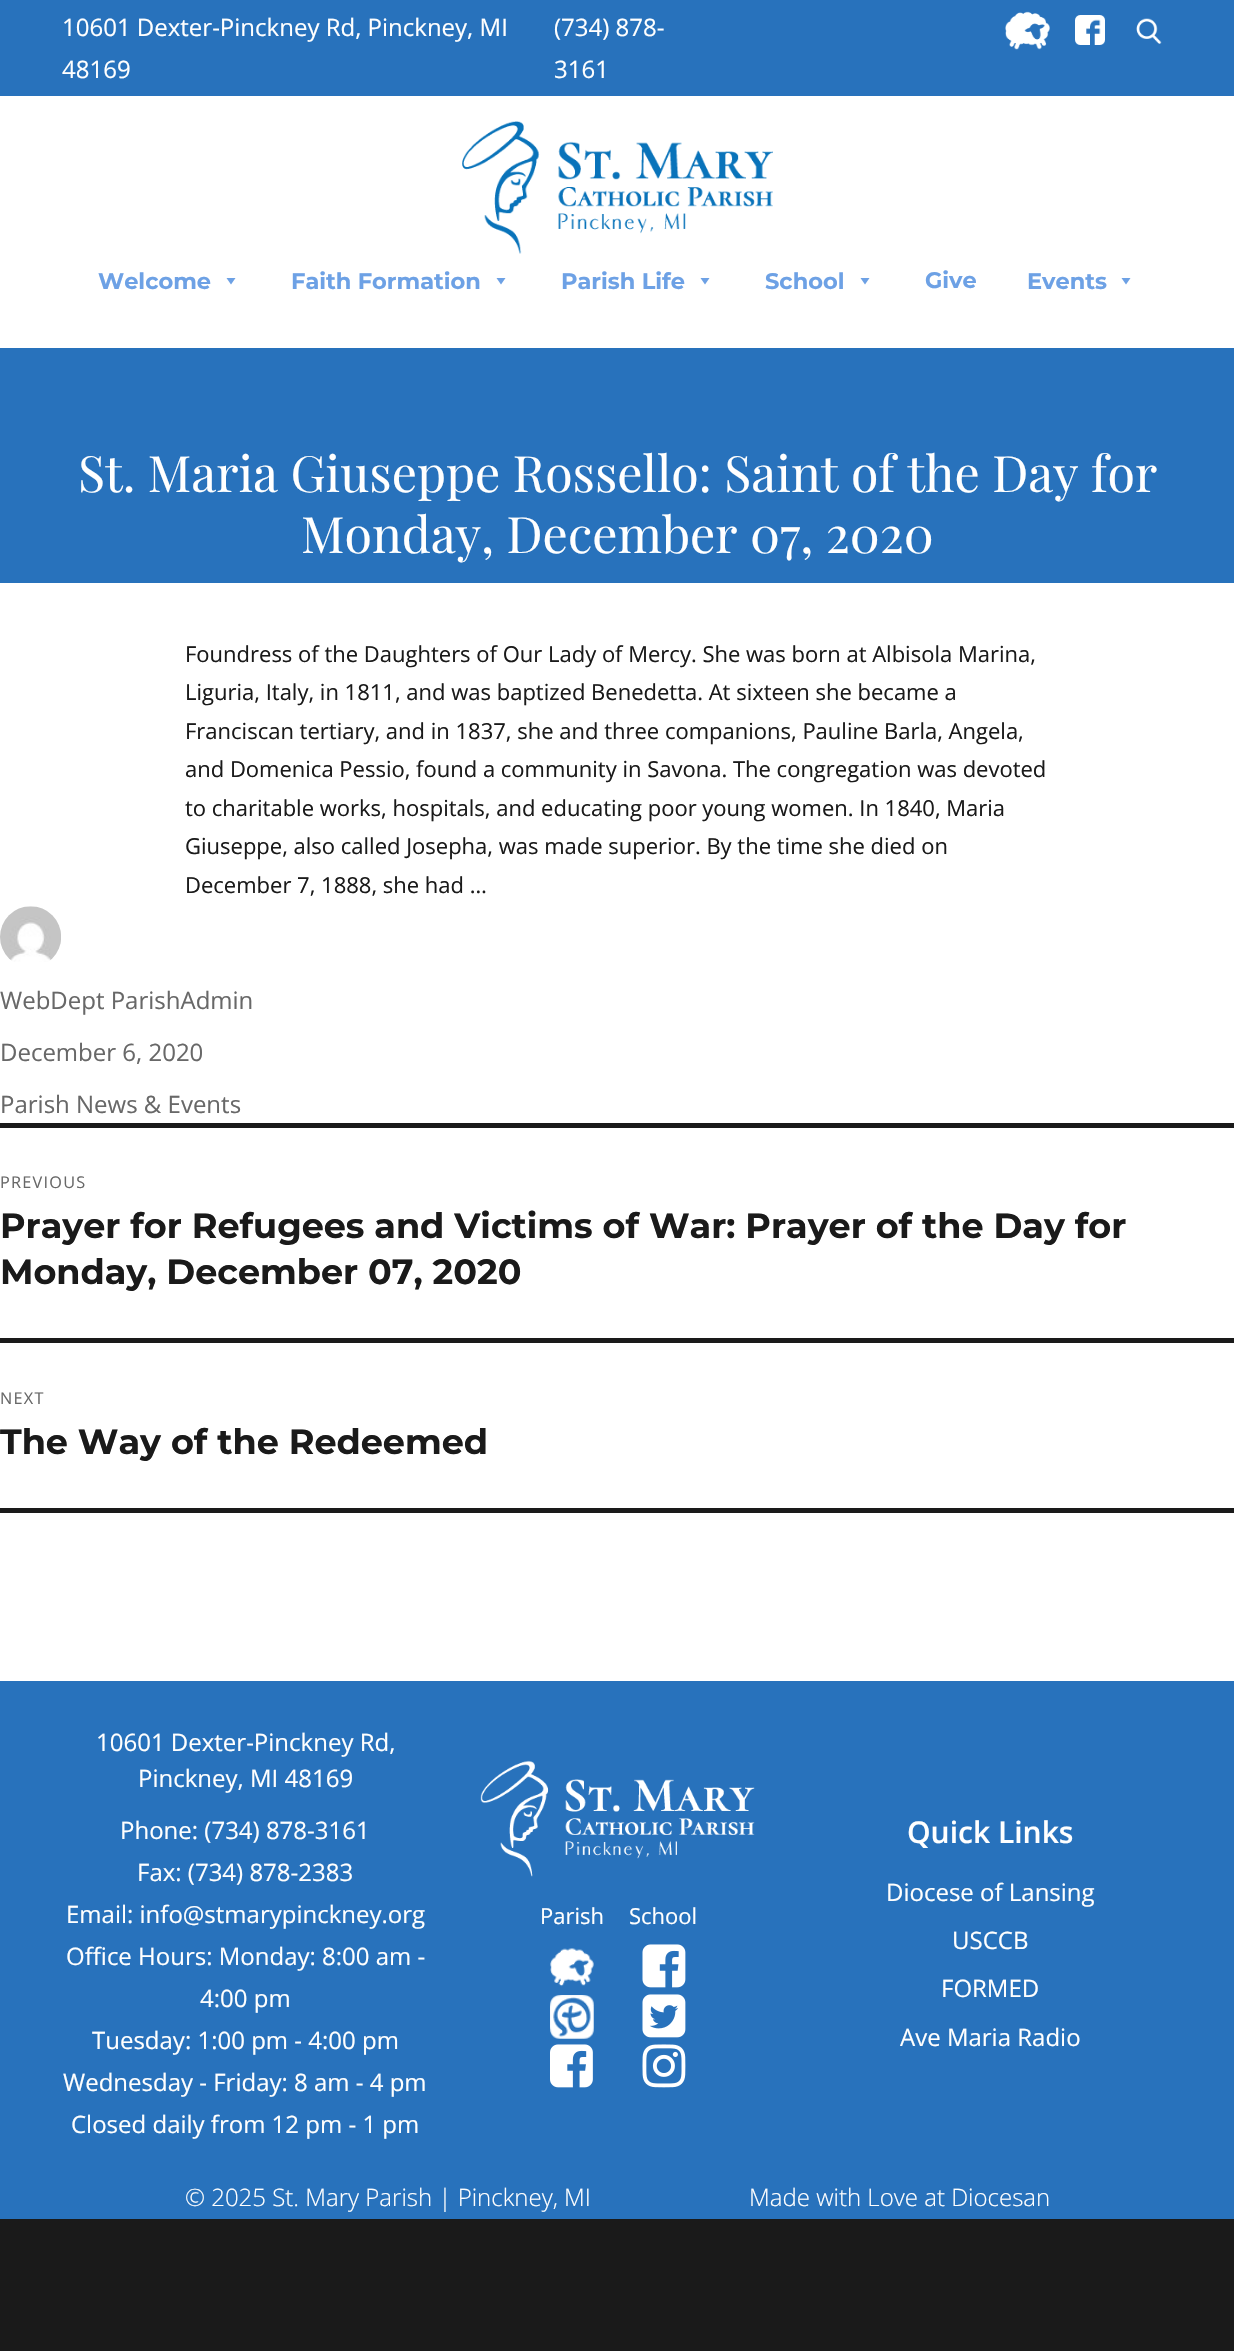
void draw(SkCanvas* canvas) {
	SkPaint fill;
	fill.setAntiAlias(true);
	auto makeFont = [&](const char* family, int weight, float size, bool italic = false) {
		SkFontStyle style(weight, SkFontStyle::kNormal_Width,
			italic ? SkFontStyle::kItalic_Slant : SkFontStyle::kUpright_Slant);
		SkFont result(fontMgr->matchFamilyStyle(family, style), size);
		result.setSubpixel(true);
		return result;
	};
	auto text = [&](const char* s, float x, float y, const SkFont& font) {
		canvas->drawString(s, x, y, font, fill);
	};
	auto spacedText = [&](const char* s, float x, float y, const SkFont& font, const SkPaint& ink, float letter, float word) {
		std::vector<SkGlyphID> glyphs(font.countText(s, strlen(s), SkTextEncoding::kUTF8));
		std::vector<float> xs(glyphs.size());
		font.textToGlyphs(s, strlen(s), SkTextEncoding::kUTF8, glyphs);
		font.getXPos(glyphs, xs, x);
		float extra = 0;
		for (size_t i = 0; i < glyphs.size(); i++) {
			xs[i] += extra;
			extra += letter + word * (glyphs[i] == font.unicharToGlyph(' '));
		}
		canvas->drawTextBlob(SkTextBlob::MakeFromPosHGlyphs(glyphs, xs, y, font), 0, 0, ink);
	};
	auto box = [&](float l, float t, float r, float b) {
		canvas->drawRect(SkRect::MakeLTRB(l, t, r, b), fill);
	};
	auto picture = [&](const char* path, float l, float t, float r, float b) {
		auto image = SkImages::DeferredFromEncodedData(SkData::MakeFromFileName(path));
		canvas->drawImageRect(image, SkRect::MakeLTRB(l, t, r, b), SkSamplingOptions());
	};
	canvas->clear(0xFF1A1A1A);
	fill.setColor(0xFFFFFFFF);
	box(0, 96, 1234, 1681);
	fill.setColor(0xFF2872BC);
	box(0, 0, 1234, 96);
	picture("image0.png", 1005, 11, 1050, 50);
	picture("image1.png", 1075, 15, 1105, 45);
	picture("image2.png", 1136, 18, 1162, 44);
	picture("image3.png", 462, 121, 773, 254);
	fill.setColor(0xFF6DA1E5);
	canvas->drawPath(SkPathBuilder().moveTo(235.5f, 278).lineTo(231, 284.5f).lineTo(226.5f, 278).close().detach(), fill);
	canvas->drawPath(SkPathBuilder().moveTo(505.5f, 278).lineTo(501, 284.5f).lineTo(496.5f, 278).close().detach(), fill);
	canvas->drawPath(SkPathBuilder().moveTo(709.5f, 278).lineTo(705, 284.5f).lineTo(700.5f, 278).close().detach(), fill);
	canvas->drawPath(SkPathBuilder().moveTo(869.5f, 278).lineTo(865, 284.5f).lineTo(860.5f, 278).close().detach(), fill);
	canvas->drawPath(SkPathBuilder().moveTo(1130.5f, 278).lineTo(1126, 284.5f).lineTo(1121.5f, 278).close().detach(), fill);
	fill.setColor(0xFF2872BC);
	box(0, 348, 1234, 583);
	picture("image4.png", 0, 906, 61, 962);
	fill.setColor(0xFF1A1A1A);
	box(0, 1123, 1234, 1128);
	box(0, 1508, 1234, 1513);
	box(0, 1338, 1234, 1343);
	fill.setColor(0xFF2872BC);
	box(0, 1681, 1234, 2219);
	picture("image5.png", 480, 1760, 755, 1877);
	picture("image6.png", 550, 1948, 594, 1987);
	picture("image7.png", 550, 1995, 594, 2039);
	picture("image8.png", 550, 2044, 593, 2088);
	picture("image9.png", 642, 1944, 686, 1988);
	picture("image10.png", 642, 1994, 686, 2038);
	picture("image11.png", 642, 2044, 686, 2088);
	auto font1 = makeFont("Open Sans", 400, 24);
	fill.setColor(0xFFFFFFFF);
	text("10601 Dexter-Pinckney Rd, Pinckney, MI", 62, 36, font1);
	text("48169", 62, 78, font1);
	text("(734) 878-", 554, 36, font1);
	text("3161", 554, 78, font1);
	auto font2 = makeFont("Montserrat", 100, 22.5f);
	fill.setColor(0xFF6DA1E5);
	text("Welcome", 98, 289, font2);
	text("Faith Formation", 291, 289, font2);
	text("Parish Life", 561, 289, font2);
	text("School", 765, 289, font2);
	text("Give", 925, 288, font2);
	text("Events", 1027, 289, font2);
	auto font3 = makeFont("Playfair Display", 400, 50);
	fill.setColor(0xFFFFFFFF);
	text("St. Maria Giuseppe Rossello: Saint of the Day for", 78, 492, font3);
	text("Monday, December 07, 2020", 301, 553, font3);
	auto font4 = makeFont("Open Sans", 400, 22);
	fill.setColor(0xFF1A1A1A);
	text("Foundress of the Daughters of Our Lady of Mercy. She was born at Albisola Marina,", 185, 662, font4);
	text("Liguria, Italy, in 1811, and was baptized Benedetta. At sixteen she became a", 185, 700, font4);
	text("Franciscan tertiary, and in 1837, she and three companions, Pauline Barla, Angela,", 185, 739, font4);
	text("and Domenica Pessio, found a community in Savona. The congregation was devoted", 185, 777, font4);
	text("to charitable works, hospitals, and educating poor young women. In 1840, Maria", 185, 816, font4);
	text("Giuseppe, also called Josepha, was made superior. By the time she died on", 185, 854, font4);
	text("December 7, 1888, she had …", 185, 893, font4);
	fill.setColor(0xFF686868);
	text("WebDept ParishAdmin", 0, 1009, font1);
	text("December 6, 2020", 0, 1061, font1);
	text("Parish News & Events", 0, 1113, font1);
	auto font5 = makeFont("Open Sans", 400, 16.25f);
	spacedText("PREVIOUS", 0, 1188, font5, fill, 1.25f, 0);
	auto font6 = makeFont("Montserrat", 100, 35);
	fill.setColor(0xFF1A1A1A);
	text("Prayer for Refugees and Victims of War: Prayer of the Day for", 0, 1238, font6);
	text("Monday, December 07, 2020", 0, 1284, font6);
	fill.setColor(0xFF686868);
	spacedText("NEXT", 0, 1404, font5, fill, 1.25f, 0);
	fill.setColor(0xFF1A1A1A);
	text("The Way of the Redeemed", 0, 1454, font6);
	fill.setColor(0xFFFFFFFF);
	text("10601 Dexter-Pinckney Rd,", 96, 1751, font1);
	text("Pinckney, MI 48169", 138, 1787, font1);
	text("Phone: (734) 878-3161", 120, 1839, font1);
	text("Fax: (734) 878-2383", 137, 1881, font1);
	text("Email: info@stmarypinckney.org", 66, 1923, font1);
	text("Office Hours: Monday: 8:00 am -", 66, 1965, font1);
	text("4:00 pm", 200, 2007, font1);
	text("Tuesday: 1:00 pm - 4:00 pm", 92, 2049, font1);
	text("Wednesday - Friday: 8 am - 4 pm", 63, 2091, font1);
	text("Closed daily from 12 pm - 1 pm", 71, 2133, font1);
	text("Parish", 540, 1924, font4);
	text("School", 629, 1924, font4);
	auto font7 = makeFont("Open Sans", 600, 30);
	text("Quick Links", 907, 1843, font7);
	text("Diocese of Lansing", 886, 1901, font1);
	text("USCCB", 952, 1949, font1);
	text("FORMED", 941, 1997, font1);
	text("Ave Maria Radio", 900, 2046, font1);
	auto font8 = makeFont("Open Sans", 300, 24);
	text("© 2025 St. Mary Parish | Pinckney, MI", 185, 2206, font8);
	text("Made with Love at Diocesan", 749, 2206, font8);
}
